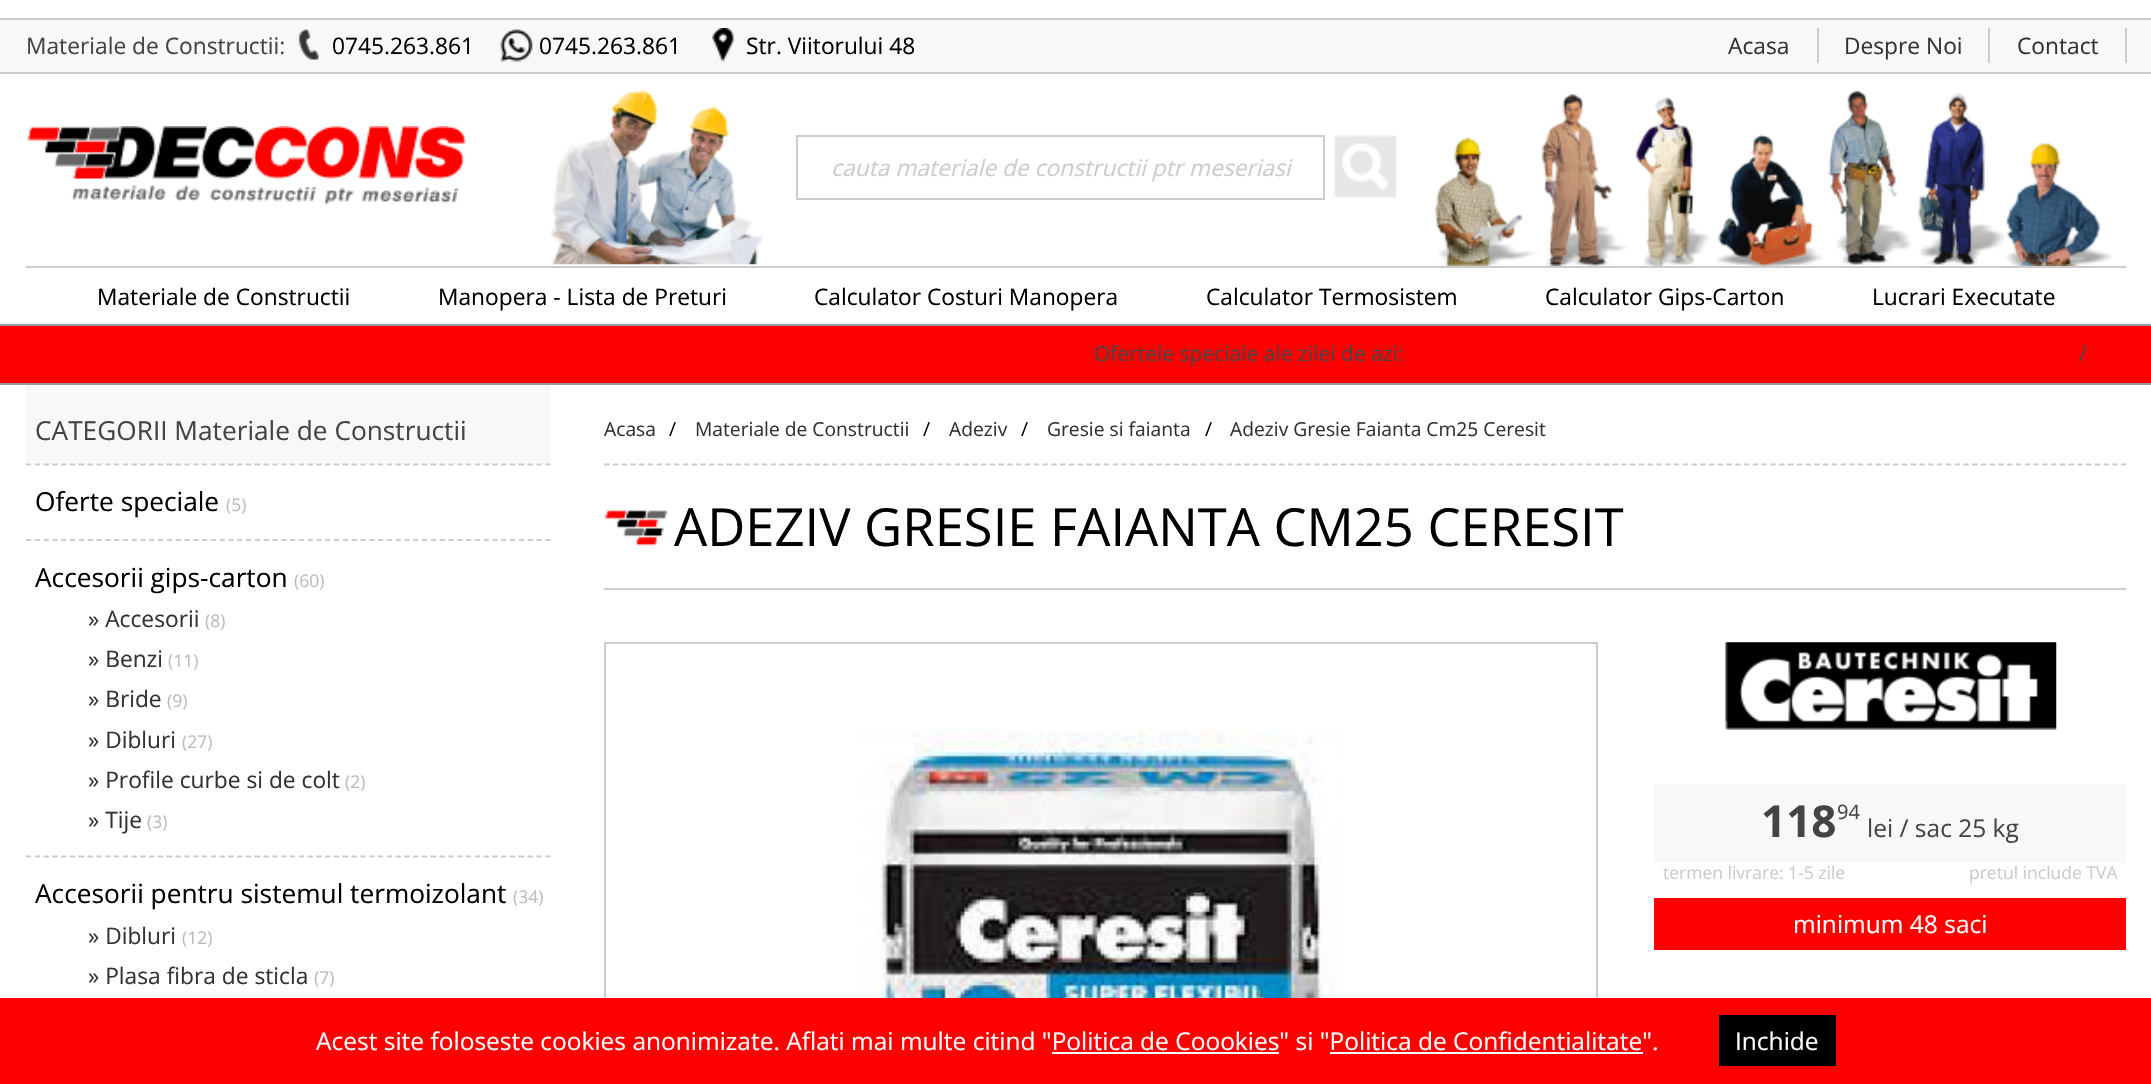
void draw(SkCanvas* canvas) {
	SkPaint fill;
	fill.setAntiAlias(true);
	auto makeFont = [&](const char* family, int weight, float size, bool italic = false) {
		SkFontStyle style(weight, SkFontStyle::kNormal_Width,
			italic ? SkFontStyle::kItalic_Slant : SkFontStyle::kUpright_Slant);
		SkFont result(fontMgr->matchFamilyStyle(family, style), size);
		result.setSubpixel(true);
		return result;
	};
	auto text = [&](const char* s, float x, float y, const SkFont& font) {
		canvas->drawString(s, x, y, font, fill);
	};
	auto box = [&](float l, float t, float r, float b) {
		canvas->drawRect(SkRect::MakeLTRB(l, t, r, b), fill);
	};
	auto picture = [&](const char* path, float l, float t, float r, float b) {
		auto image = SkImages::DeferredFromEncodedData(SkData::MakeFromFileName(path));
		canvas->drawImageRect(image, SkRect::MakeLTRB(l, t, r, b), SkSamplingOptions());
	};
	canvas->clear(0xFFFFFFFF);
	fill.setColor(0xFFF8F8F8);
	box(0, 20, 2151, 72);
	fill.setColor(0xFFCCCCCC);
	box(0, 18, 2151, 20);
	box(0, 72, 2151, 74);
	picture("image0.png", 298, 29, 319, 60);
	picture("image1.png", 500, 29, 533, 62);
	picture("image2.png", 711, 28, 734, 62);
	box(1817, 28, 1819, 63);
	box(1988, 28, 1990, 63);
	box(2125, 28, 2127, 63);
	picture("image3.png", 26, 126, 466, 205);
	picture("image4.png", 551, 91, 763, 265);
	fill.setStyle(SkPaint::kStroke_Style);
	fill.setStrokeWidth(2);
	canvas->drawRect(SkRect::MakeLTRB(797, 136, 1324, 199), fill);
	picture("image5.png", 1333, 135, 1397, 198);
	picture("image6.png", 1434, 91, 2112, 266);
	fill.setStyle(SkPaint::kFill_Style);
	box(26, 266, 2126, 268);
	fill.setColor(0xFFFF0000);
	box(0, 326, 2151, 383);
	fill.setColor(0xFF999999);
	box(0, 324, 2151, 326);
	box(0, 383, 2151, 385);
	fill.setColor(0xFFF8F8F8);
	box(26, 385, 551, 464);
	fill.setStyle(SkPaint::kStroke_Style);
	fill.setStrokeWidth(1.8f);
	fill.setColor(0xFFCCCCCC);
	fill.setPathEffect(SkDashPathEffect::Make({{5.25f, 3.55f}}, 0));
	canvas->drawPath(SkPathBuilder().moveTo(26, 464.5f).lineTo(551, 464.5f).detach(), fill);
	fill.setPathEffect(nullptr);
	fill.setPathEffect(SkDashPathEffect::Make({{5.25f, 3.55f}}, 0));
	canvas->drawPath(SkPathBuilder().moveTo(26, 540).lineTo(551, 540).detach(), fill);
	fill.setPathEffect(nullptr);
	fill.setPathEffect(SkDashPathEffect::Make({{5.25f, 3.55f}}, 0));
	canvas->drawPath(SkPathBuilder().moveTo(26, 856.5f).lineTo(551, 856.5f).detach(), fill);
	fill.setPathEffect(nullptr);
	fill.setPathEffect(SkDashPathEffect::Make({{5.25f, 3.52f}}, 0));
	canvas->drawPath(SkPathBuilder().moveTo(604, 464.5f).lineTo(2126, 464.5f).detach(), fill);
	fill.setPathEffect(nullptr);
	picture("image7.png", 604, 509, 668, 547);
	fill.setStyle(SkPaint::kFill_Style);
	box(604, 588, 2126, 590);
	fill.setStyle(SkPaint::kStroke_Style);
	fill.setStrokeWidth(2);
	canvas->drawRect(SkRect::MakeLTRB(605, 643, 1597, 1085), fill);
	picture("image8.png", 861, 729, 1340, 998);
	picture("image9.png", 1725, 642, 2057, 730);
	fill.setStyle(SkPaint::kFill_Style);
	fill.setColor(0xFFF8F8F8);
	box(1654, 784, 2126, 863);
	fill.setColor(0xFFFF0000);
	box(1654, 898, 2126, 950);
	box(0, 998, 2151, 1084);
	fill.setColor(0xFFFFFFFF);
	box(1052, 1052, 1279, 1054);
	box(1330, 1052, 1643, 1054);
	fill.setColor(0xFF000000);
	box(1719, 1015, 1836, 1066);
	auto font1 = makeFont("Open Sans", 400, 22.75f);
	fill.setColor(0xFF444444);
	text("Materiale de Constructii:", 26, 54, font1);
	fill.setColor(0xFF000000);
	text("0745.263.861", 332, 54, font1);
	text("0745.263.861", 539, 54, font1);
	text("Str. Viitorului 48", 746, 54, font1);
	fill.setColor(0xFF333333);
	text("Acasa", 1728, 54, font1);
	text("Despre Noi", 1844, 54, font1);
	text("Contact", 2017, 54, font1);
	auto font2 = makeFont("Open Sans", 400, 22.75f, true);
	fill.setColor(0xFFCCCCCC);
	text("cauta materiale de constructii ptr meseriasi", 831, 176, font2);
	fill.setColor(0xFF000000);
	text("Materiale de Constructii", 97, 305, font1);
	text("Manopera - Lista de Preturi", 438, 305, font1);
	text("Calculator Costuri Manopera", 814, 305, font1);
	text("Calculator Termosistem", 1206, 305, font1);
	text("Calculator Gips-Carton", 1545, 305, font1);
	text("Lucrari Executate", 1872, 305, font1);
	auto font3 = makeFont("Open Sans", 400, 21);
	fill.setColor(0xFF444444);
	text("Ofertele speciale ale zilei de azi:", 1094, 361, font3);
	text("/", 2079, 361, font3);
	auto font4 = makeFont("Open Sans", 400, 26.25f);
	text("CATEGORII Materiale de Constructii", 35, 440, font4);
	fill.setColor(0xFF000000);
	text("Oferte speciale", 35, 511, font4);
	auto font5 = makeFont("Open Sans", 400, 17.5f);
	fill.setColor(0xFFBBBBBB);
	text("(5)", 226, 511, font5);
	fill.setColor(0xFF000000);
	text("Accesorii gips-carton", 35, 587, font4);
	fill.setColor(0xFFBBBBBB);
	text("(60)", 294, 587, font5);
	fill.setColor(0xFF333333);
	text("» Accesorii", 88, 627, font1);
	fill.setColor(0xFFBBBBBB);
	text("(8)", 205, 627, font5);
	fill.setColor(0xFF333333);
	text("» Benzi", 88, 667, font1);
	fill.setColor(0xFFBBBBBB);
	text("(11)", 168, 667, font5);
	fill.setColor(0xFF333333);
	text("» Bride", 88, 707, font1);
	fill.setColor(0xFFBBBBBB);
	text("(9)", 167, 707, font5);
	fill.setColor(0xFF333333);
	text("» Dibluri", 88, 748, font1);
	fill.setColor(0xFFBBBBBB);
	text("(27)", 182, 748, font5);
	fill.setColor(0xFF333333);
	text("» Profile curbe si de colt", 88, 788, font1);
	fill.setColor(0xFFBBBBBB);
	text("(2)", 345, 788, font5);
	fill.setColor(0xFF333333);
	text("» Tije", 88, 828, font1);
	fill.setColor(0xFFBBBBBB);
	text("(3)", 147, 828, font5);
	fill.setColor(0xFF000000);
	text("Accesorii pentru sistemul termoizolant", 35, 903, font4);
	fill.setColor(0xFFBBBBBB);
	text("(34)", 513, 903, font5);
	fill.setColor(0xFF333333);
	text("» Dibluri", 88, 944, font1);
	fill.setColor(0xFFBBBBBB);
	text("(12)", 182, 944, font5);
	fill.setColor(0xFF333333);
	text("» Plasa fibra de sticla", 88, 984, font1);
	fill.setColor(0xFFBBBBBB);
	text("(7)", 314, 984, font5);
	auto font6 = makeFont("Open Sans", 400, 19.25f);
	fill.setColor(0xFF333333);
	text("Acasa", 604, 436, font6);
	fill.setColor(0xFF000000);
	text("/", 669, 436, font6);
	fill.setColor(0xFF333333);
	text("Materiale de Constructii", 695, 436, font6);
	fill.setColor(0xFF000000);
	text("/", 923, 436, font6);
	fill.setColor(0xFF333333);
	text("Adeziv", 949, 436, font6);
	fill.setColor(0xFF000000);
	text("/", 1021, 436, font6);
	fill.setColor(0xFF333333);
	text("Gresie si faianta", 1047, 436, font6);
	fill.setColor(0xFF000000);
	text("/", 1205, 436, font6);
	fill.setColor(0xFF333333);
	text("Adeziv Gresie Faianta Cm25 Ceresit", 1230, 436, font6);
	auto font7 = makeFont("Open Sans", 400, 52.5f);
	fill.setColor(0xFF000000);
	text("ADEZIV GRESIE FAIANTA CM25 CERESIT", 674, 546, font7);
	auto font8 = makeFont("Open Sans", 700, 44);
	fill.setColor(0xFF444444);
	text("118", 1761, 837, font8);
	auto font9 = makeFont("Open Sans", 400, 20);
	text("94", 1837, 819, font9);
	auto font10 = makeFont("Open Sans", 400, 24.5f);
	text("lei / sac 25 kg", 1867, 837, font10);
	fill.setColor(0xFFCCCCCC);
	text("termen livrare: 1-5 zile", 1663, 879, font5);
	text("pretul include TVA", 1969, 879, font5);
	fill.setColor(0xFFFFFFFF);
	text("minimum 48 saci", 1793, 933, font10);
	text("Acest site foloseste cookies anonimizate. Aflati mai multe citind \"Politica de Coookies\" si \"Politica de Confidentialitate\".", 316, 1050, font10);
	text("Inchide", 1735, 1050, font10);
}
